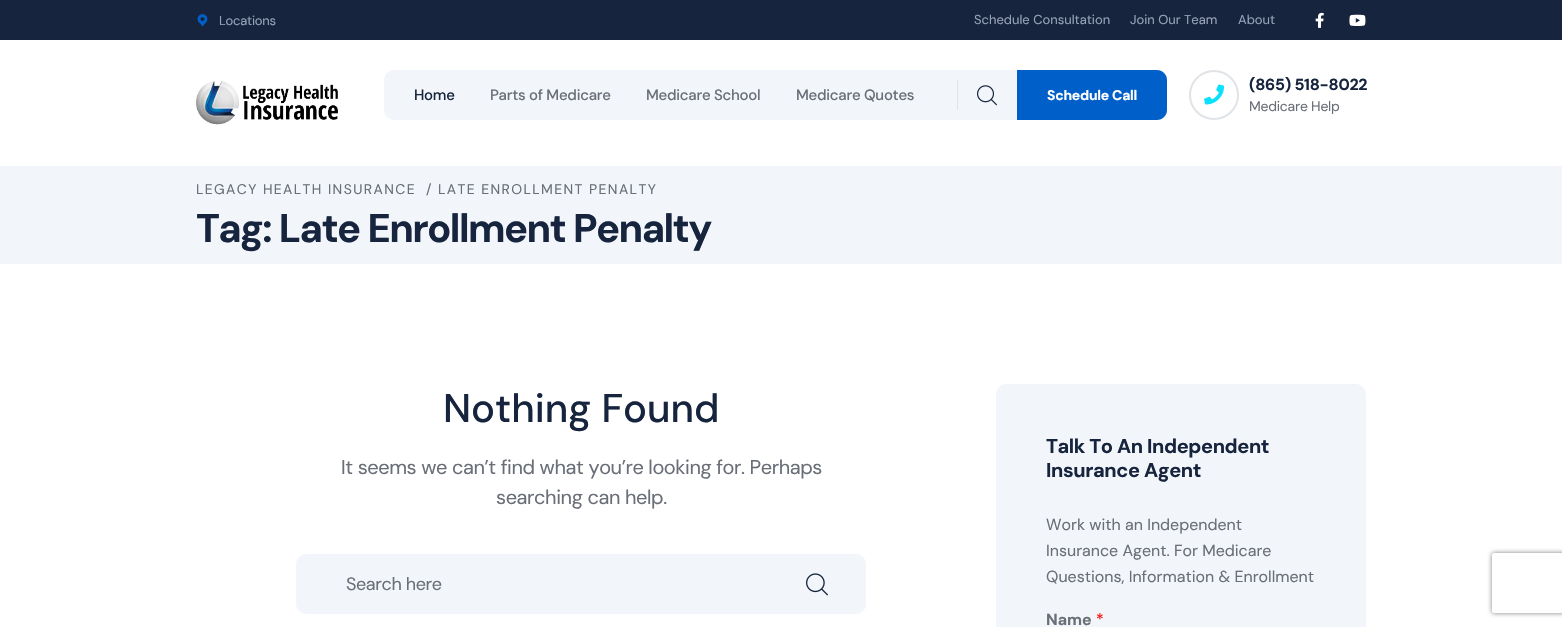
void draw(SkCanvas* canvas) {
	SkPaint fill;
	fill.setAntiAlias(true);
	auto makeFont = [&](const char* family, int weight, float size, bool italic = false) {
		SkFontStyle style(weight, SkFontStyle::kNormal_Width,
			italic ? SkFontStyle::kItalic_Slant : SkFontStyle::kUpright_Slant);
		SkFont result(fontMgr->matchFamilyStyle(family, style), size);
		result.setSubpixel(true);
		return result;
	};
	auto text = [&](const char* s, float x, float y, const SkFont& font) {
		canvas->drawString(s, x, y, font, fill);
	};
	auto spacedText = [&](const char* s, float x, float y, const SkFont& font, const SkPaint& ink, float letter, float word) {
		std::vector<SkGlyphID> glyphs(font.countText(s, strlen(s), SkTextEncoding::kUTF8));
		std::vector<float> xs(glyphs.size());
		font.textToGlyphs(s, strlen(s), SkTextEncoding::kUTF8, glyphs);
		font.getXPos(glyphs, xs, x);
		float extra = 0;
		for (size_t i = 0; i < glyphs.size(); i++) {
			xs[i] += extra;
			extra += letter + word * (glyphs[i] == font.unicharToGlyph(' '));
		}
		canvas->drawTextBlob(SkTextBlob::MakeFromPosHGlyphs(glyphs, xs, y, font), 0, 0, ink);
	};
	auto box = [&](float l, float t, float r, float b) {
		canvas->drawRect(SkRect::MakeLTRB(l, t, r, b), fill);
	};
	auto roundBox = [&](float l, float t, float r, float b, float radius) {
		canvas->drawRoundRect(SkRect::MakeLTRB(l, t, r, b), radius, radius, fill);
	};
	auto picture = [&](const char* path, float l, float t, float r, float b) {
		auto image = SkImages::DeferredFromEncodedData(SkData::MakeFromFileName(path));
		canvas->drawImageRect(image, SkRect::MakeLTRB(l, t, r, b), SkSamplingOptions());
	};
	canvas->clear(0xFFFFFFFF);
	fill.setColor(0xFF16243D);
	box(0, 0, 1562, 40);
	picture("image0.png", 197, 14, 208, 27);
	picture("image1.png", 1315, 12, 1324, 28);
	picture("image2.png", 1349, 14, 1366, 26);
	picture("image3.png", 196, 81, 338, 125);
	fill.setColor(0xFFF2F5F9);
	roundBox(384, 70, 1167, 120, 10);
	fill.setColor(0xFFE0E4E8);
	box(957, 80, 958, 110);
	picture("image4.png", 977, 85, 997, 106);
	fill.setColor(0xFF015FC9);
	canvas->drawPath(SkPathBuilder().moveTo(1017, 70).lineTo(1157, 70).cubicTo(1162.5f, 70, 1167, 74.5f, 1167, 80).lineTo(1167, 110).cubicTo(1167, 115.5f, 1162.5f, 120, 1157, 120).lineTo(1017, 120).close().detach(), fill);
	fill.setStyle(SkPaint::kStroke_Style);
	fill.setStrokeWidth(2);
	fill.setColor(0xFFE0E4E8);
	canvas->drawCircle(1214, 95, 24, fill);
	picture("image5.png", 1204, 84, 1224, 105);
	fill.setStyle(SkPaint::kFill_Style);
	fill.setColor(0xFFF2F5F9);
	box(0, 166, 1562, 264);
	roundBox(296, 554, 866, 614, 10);
	picture("image6.png", 806, 573, 828, 596);
	roundBox(996, 384, 1366, 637, 10);
	canvas->save();
	canvas->clipPath(SkPathBuilder(SkPathFillType::kEvenOdd).moveTo(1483, 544).lineTo(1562, 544).lineTo(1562, 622).lineTo(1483, 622).close().moveTo(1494, 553).lineTo(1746, 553).cubicTo(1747, 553, 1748, 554, 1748, 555).lineTo(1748, 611).cubicTo(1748, 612, 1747, 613, 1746, 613).lineTo(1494, 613).cubicTo(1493, 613, 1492, 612, 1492, 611).lineTo(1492, 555).cubicTo(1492, 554, 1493, 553, 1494, 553).close().detach(), true);
	fill.setColor(0xFF808080);
	fill.setMaskFilter(SkMaskFilter::MakeBlur(kNormal_SkBlurStyle, 2.5f));
	canvas->drawRoundRect(SkRect::MakeLTRB(1492, 553, 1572, 613), 2, 2, fill);
	fill.setMaskFilter(nullptr);
	canvas->restore();
	auto font1 = makeFont("DM Sans", 400, 13);
	fill.setColor(0xFF97A2B7);
	spacedText("Locations", 219, 25, font1, fill, -0.25f, 0);
	text("Schedule Consultation", 974, 24, font1);
	text("Join Our Team", 1130, 24, font1);
	text("About", 1238, 24, font1);
	auto font2 = makeFont("DM Sans", 500, 15);
	fill.setColor(0xFF16243D);
	spacedText("Home", 414, 100, font2, fill, -0.25f, 0);
	fill.setColor(0xFF696E77);
	spacedText("Parts of Medicare", 490, 100, font2, fill, -0.25f, 0);
	spacedText("Medicare School", 646, 100, font2, fill, -0.25f, 0);
	spacedText("Medicare Quotes", 796, 100, font2, fill, -0.25f, 0);
	auto font3 = makeFont("DM Sans", 700, 14);
	fill.setColor(0xFFFFFFFF);
	spacedText("Schedule Call", 1047, 100, font3, fill, -0.25f, 0);
	auto font4 = makeFont("DM Sans", 700, 16);
	fill.setColor(0xFF16243D);
	spacedText("(865) 518-8022", 1249, 90, font4, fill, -0.25f, 0);
	auto font5 = makeFont("DM Sans", 400, 14);
	fill.setColor(0xFF696E77);
	spacedText("Medicare Help", 1249, 111, font5, fill, -0.25f, 0);
	spacedText("LEGACY HEALTH INSURANCE", 196, 194, font5, fill, 1.4f, 0);
	spacedText("/ LATE ENROLLMENT PENALTY", 426, 194, font5, fill, 1.4f, 0);
	auto font6 = makeFont("DM Sans", 700, 40);
	fill.setColor(0xFF16243D);
	spacedText("Tag: Late Enrollment Penalty", 196, 242, font6, fill, -1.6f, 0);
	auto font7 = makeFont("DM Sans", 500, 40);
	text("Nothing Found", 443, 422, font7);
	auto font8 = makeFont("DM Sans", 400, 20);
	fill.setColor(0xFF696E77);
	spacedText("It seems we can’t find what you’re looking for. Perhaps", 341, 474, font8, fill, -0.4f, 0);
	spacedText("searching can help.", 496, 504, font8, fill, -0.4f, 0);
	auto font9 = makeFont("DM Sans", 400, 18);
	spacedText("Search here", 346, 590, font9, fill, -0.4f, 0);
	auto font10 = makeFont("DM Sans", 700, 20);
	fill.setColor(0xFF16243D);
	spacedText("Talk To An Independent", 1046, 453, font10, fill, -0.4f, 0);
	spacedText("Insurance Agent", 1046, 477, font10, fill, -0.4f, 0);
	auto font11 = makeFont("DM Sans", 400, 16);
	fill.setColor(0xFF696E77);
	text("Work with an Independent", 1046, 530, font11);
	text("Insurance Agent. For Medicare", 1046, 556, font11);
	text("Questions, Information & Enrollment", 1046, 582, font11);
	text("Name", 1046, 625, font4);
	fill.setColor(0xFFFF0000);
	text("*", 1096, 625, font11);
}
